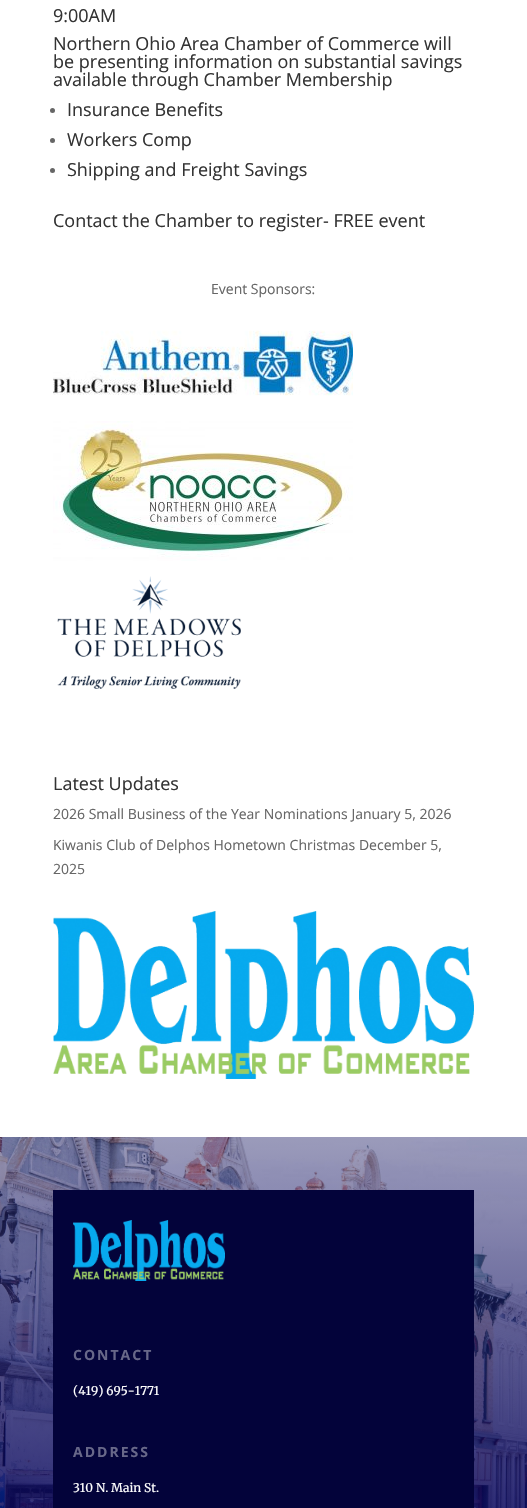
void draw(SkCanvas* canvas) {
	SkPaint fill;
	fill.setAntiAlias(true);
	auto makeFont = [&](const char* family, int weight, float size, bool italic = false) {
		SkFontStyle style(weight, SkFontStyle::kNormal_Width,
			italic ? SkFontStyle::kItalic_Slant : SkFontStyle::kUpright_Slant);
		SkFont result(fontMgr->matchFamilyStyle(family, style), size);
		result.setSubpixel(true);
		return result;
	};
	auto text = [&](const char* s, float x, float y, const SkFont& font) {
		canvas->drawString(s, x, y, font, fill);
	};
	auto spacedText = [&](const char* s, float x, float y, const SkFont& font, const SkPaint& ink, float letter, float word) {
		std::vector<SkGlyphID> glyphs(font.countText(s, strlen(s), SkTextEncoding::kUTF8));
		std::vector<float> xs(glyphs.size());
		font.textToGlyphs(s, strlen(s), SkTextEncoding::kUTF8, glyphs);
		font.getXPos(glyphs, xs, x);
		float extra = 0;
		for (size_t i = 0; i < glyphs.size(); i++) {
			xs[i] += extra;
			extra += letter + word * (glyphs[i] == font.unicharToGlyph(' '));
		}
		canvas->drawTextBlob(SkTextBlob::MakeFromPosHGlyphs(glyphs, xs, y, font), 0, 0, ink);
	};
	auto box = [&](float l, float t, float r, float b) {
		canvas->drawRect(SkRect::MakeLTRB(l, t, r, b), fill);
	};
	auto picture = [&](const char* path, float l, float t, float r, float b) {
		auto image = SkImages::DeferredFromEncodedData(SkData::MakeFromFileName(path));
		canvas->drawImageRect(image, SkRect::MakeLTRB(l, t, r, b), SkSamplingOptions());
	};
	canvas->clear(0xFFFFFFFF);
	fill.setColor(0xFF666666);
	canvas->drawCircle(52.5f, 110.5f, 2.5f, fill);
	canvas->drawCircle(52.5f, 140.5f, 2.5f, fill);
	canvas->drawCircle(52.5f, 170.5f, 2.5f, fill);
	picture("image0.png", 53, 330, 353, 396);
	picture("image1.png", 53, 421, 353, 561);
	picture("image2.png", 57, 576, 241, 689);
	picture("image3.png", 53, 911, 474, 1079);
	picture("image4.png", 0, 1137, 527, 1508);
	fill.setColor(0xFF03033A);
	box(53, 1190, 474, 1508);
	picture("image5.png", 73, 1220, 225, 1281);
	auto font1 = makeFont("Open Sans", 400, 18);
	fill.setColor(0xFF333333);
	text("9:00AM", 53, 22, font1);
	text("Northern Ohio Area Chamber of Commerce will", 53, 50, font1);
	text("be presenting information on substantial savings", 53, 68, font1);
	text("available through Chamber Membership", 53, 86, font1);
	text("Insurance Benefits", 67, 116, font1);
	text("Workers Comp", 67, 146, font1);
	text("Shipping and Freight Savings", 67, 176, font1);
	text("Contact the Chamber to register- FREE event", 53, 227, font1);
	auto font2 = makeFont("Open Sans", 400, 14);
	fill.setColor(0xFF666666);
	text("Event Sponsors:", 211, 294, font2);
	fill.setColor(0xFF333333);
	text("Latest Updates", 53, 790, font1);
	fill.setColor(0xFF666666);
	text("2026 Small Business of the Year Nominations January 5, 2026", 53, 819, font2);
	text("Kiwanis Club of Delphos Hometown Christmas December 5,", 53, 850, font2);
	text("2025", 53, 874, font2);
	auto font3 = makeFont("Open Sans", 700, 14);
	fill.setColor(0xFF686889);
	spacedText("CONTACT", 73, 1360, font3, fill, 2, 0);
	auto font4 = makeFont("Merriweather", 400, 12);
	fill.setColor(0xFFFFFFFF);
	text("(419) 695-1771", 73, 1395, font4);
	fill.setColor(0xFF686889);
	spacedText("ADDRESS", 73, 1457, font3, fill, 2, 0);
	fill.setColor(0xFFFFFFFF);
	text("310 N. Main St.", 73, 1492, font4);
}
